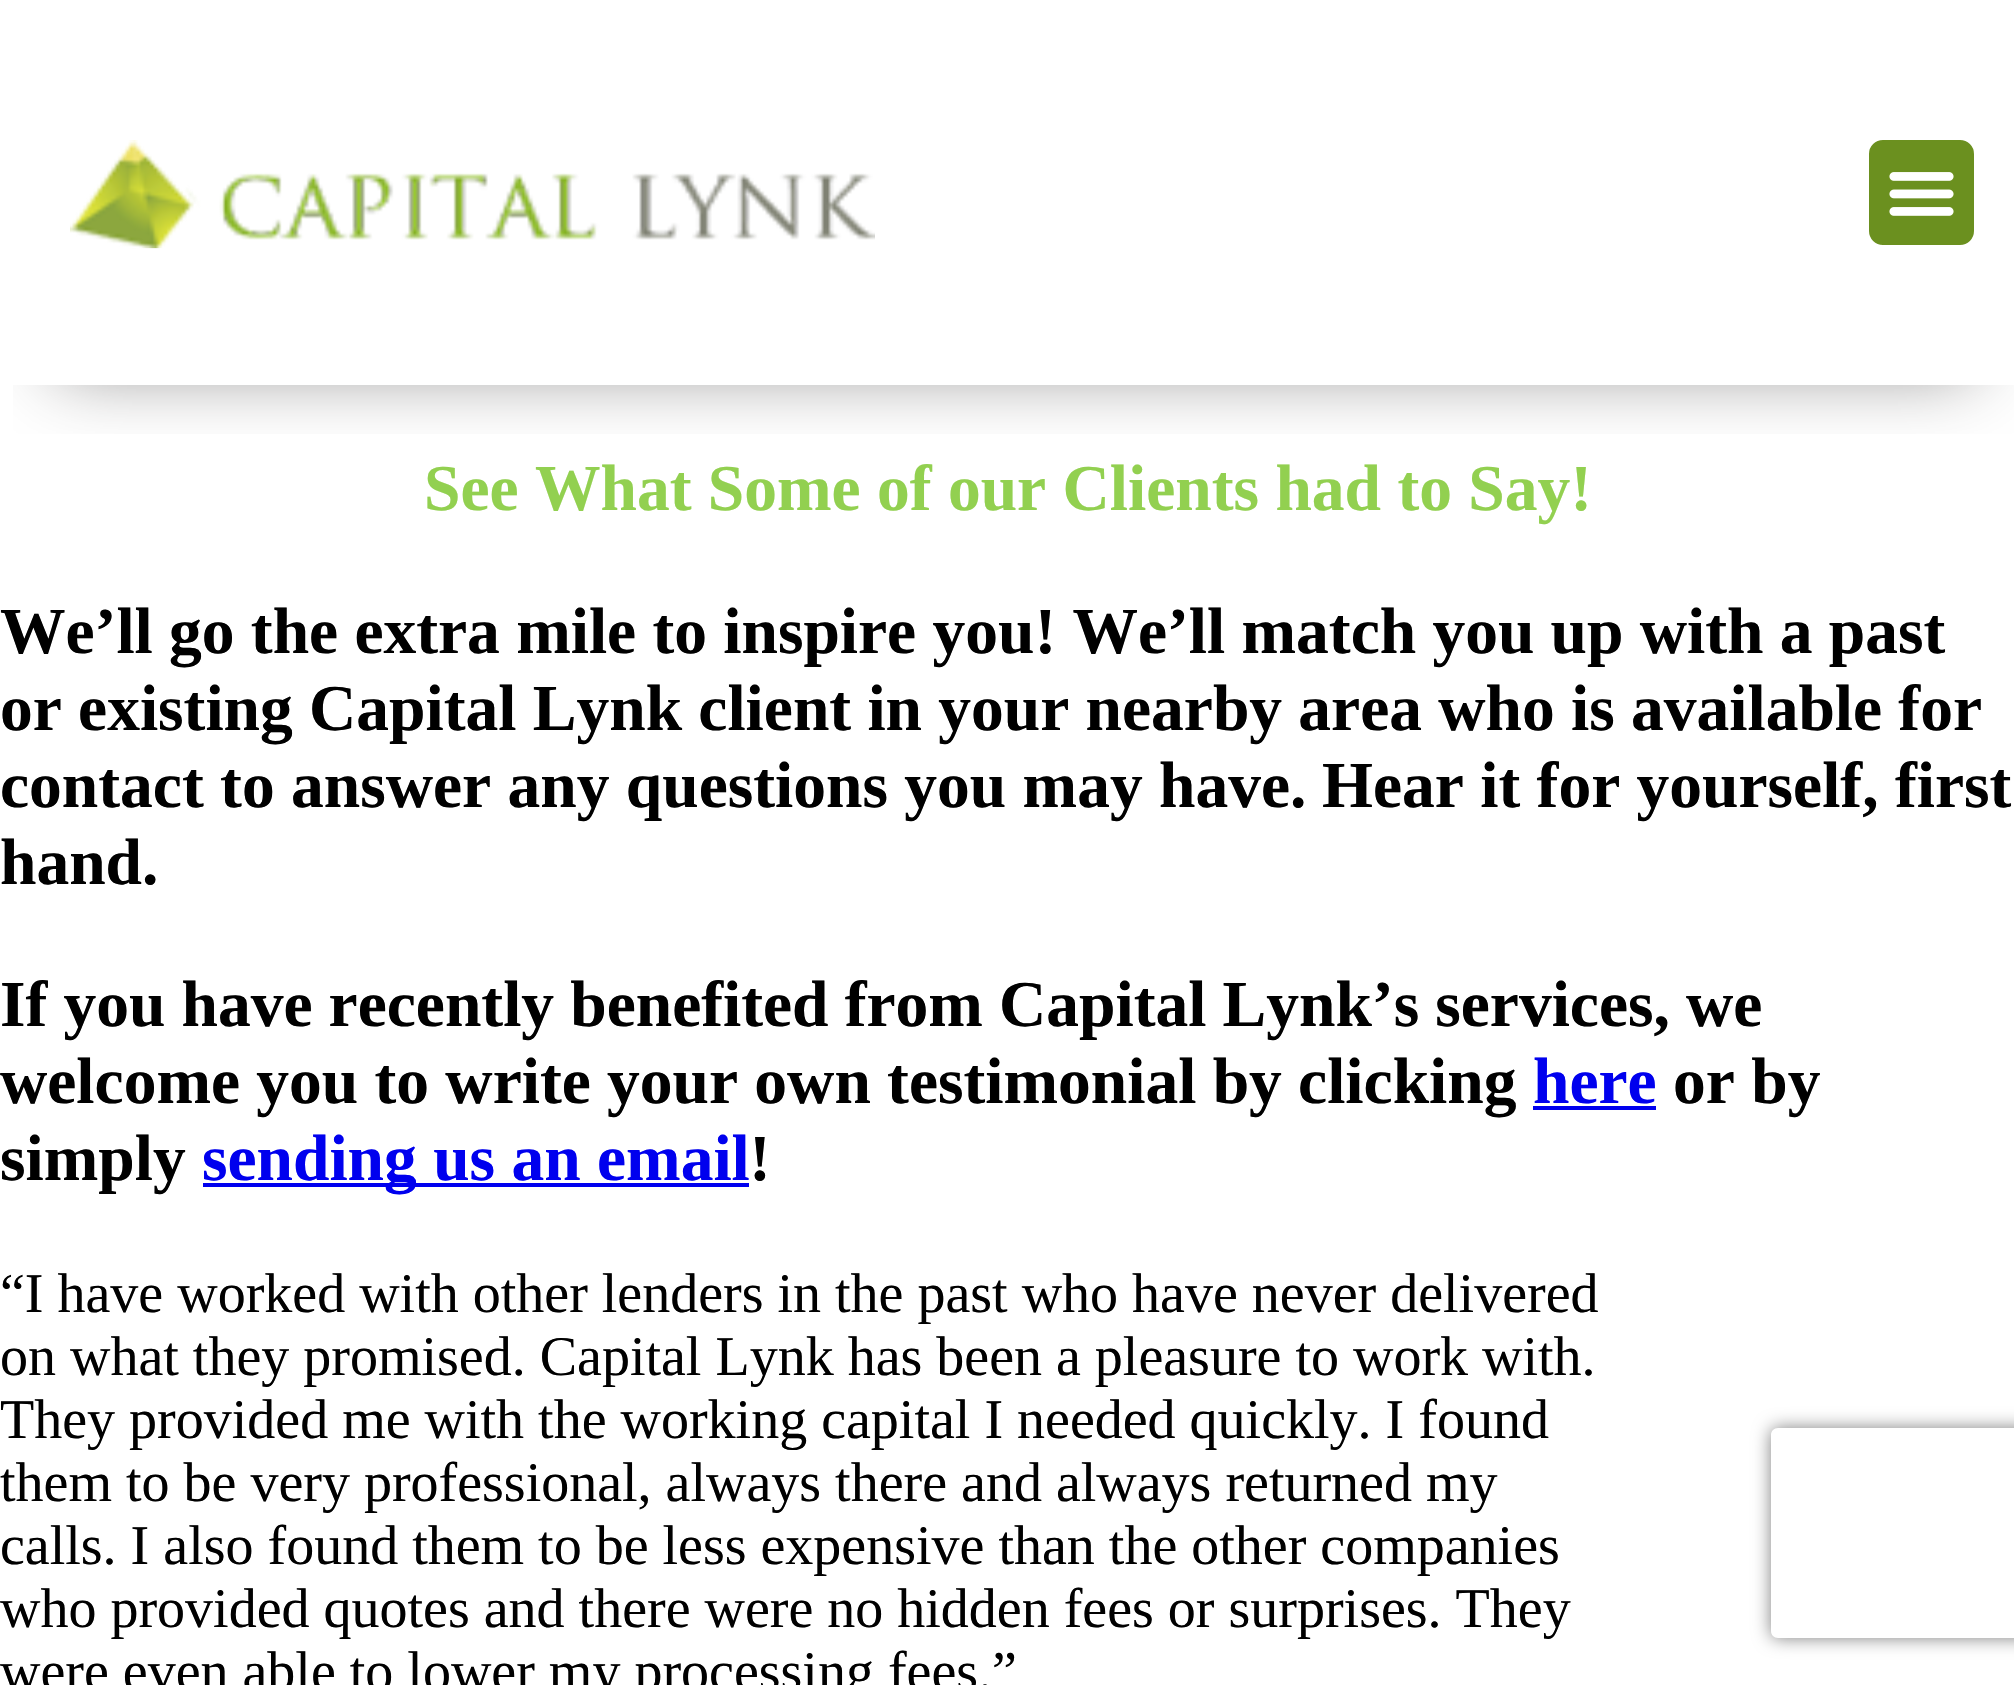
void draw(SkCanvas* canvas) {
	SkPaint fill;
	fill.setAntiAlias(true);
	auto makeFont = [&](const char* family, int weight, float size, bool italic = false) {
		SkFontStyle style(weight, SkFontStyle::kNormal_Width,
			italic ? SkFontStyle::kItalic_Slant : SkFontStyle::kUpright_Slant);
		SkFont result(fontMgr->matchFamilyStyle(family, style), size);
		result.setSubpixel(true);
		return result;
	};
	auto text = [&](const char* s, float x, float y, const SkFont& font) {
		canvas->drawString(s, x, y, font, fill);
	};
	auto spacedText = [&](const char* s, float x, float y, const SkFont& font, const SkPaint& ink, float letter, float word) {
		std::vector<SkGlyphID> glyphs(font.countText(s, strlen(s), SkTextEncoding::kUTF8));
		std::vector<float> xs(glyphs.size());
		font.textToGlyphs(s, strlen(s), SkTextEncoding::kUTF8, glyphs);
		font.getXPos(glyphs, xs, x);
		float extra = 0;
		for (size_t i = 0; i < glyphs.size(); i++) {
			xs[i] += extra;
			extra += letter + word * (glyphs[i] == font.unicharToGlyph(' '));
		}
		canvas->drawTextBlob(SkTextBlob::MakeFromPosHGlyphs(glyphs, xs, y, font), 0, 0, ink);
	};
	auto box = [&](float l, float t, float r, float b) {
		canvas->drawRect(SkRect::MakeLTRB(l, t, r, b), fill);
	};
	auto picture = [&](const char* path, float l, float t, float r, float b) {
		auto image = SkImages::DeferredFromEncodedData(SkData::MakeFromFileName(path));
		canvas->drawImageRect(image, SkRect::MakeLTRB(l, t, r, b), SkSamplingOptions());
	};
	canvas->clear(0xFFFFFFFF);
	canvas->save();
	canvas->clipRect(SkRect::MakeLTRB(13, 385, 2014, 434));
	fill.setColor(0x8C2E2C2C);
	fill.setMaskFilter(SkMaskFilter::MakeBlur(kNormal_SkBlurStyle, 35));
	canvas->drawRect(SkRect::MakeLTRB(56, 84, 1974, 371), fill);
	fill.setMaskFilter(nullptr);
	canvas->restore();
	picture("image0.png", 70, 140, 875, 249);
	fill.setColor(0xFF6B901F);
	canvas->drawRoundRect(SkRect::MakeLTRB(1865.5f, 136.5f, 1977.5f, 248.5f), 17.5f, 17.5f, fill);
	fill.setStyle(SkPaint::kStroke_Style);
	fill.setStrokeWidth(7);
	fill.setColor(0xFFFFFFFF);
	canvas->drawRoundRect(SkRect::MakeLTRB(1865.5f, 136.5f, 1977.5f, 248.5f), 17.5f, 17.5f, fill);
	picture("image1.png", 1889, 172, 1954, 216);
	fill.setStyle(SkPaint::kFill_Style);
	fill.setColor(0xFF0000EE);
	box(1533, 1106, 1656, 1110);
	box(203, 1183, 749, 1187);
	canvas->save();
	canvas->clipPath(SkPathBuilder(SkPathFillType::kEvenOdd).moveTo(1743, 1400).lineTo(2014, 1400).lineTo(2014, 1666).lineTo(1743, 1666).close().moveTo(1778, 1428).lineTo(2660, 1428).cubicTo(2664, 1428, 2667, 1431, 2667, 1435).lineTo(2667, 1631).cubicTo(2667, 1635, 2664, 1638, 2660, 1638).lineTo(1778, 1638).cubicTo(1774, 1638, 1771, 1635, 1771, 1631).lineTo(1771, 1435).cubicTo(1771, 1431, 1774, 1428, 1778, 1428).close().detach(), true);
	fill.setColor(0xFF808080);
	fill.setMaskFilter(SkMaskFilter::MakeBlur(kNormal_SkBlurStyle, 9));
	canvas->drawRoundRect(SkRect::MakeLTRB(1771, 1428, 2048, 1638), 7, 7, fill);
	fill.setMaskFilter(nullptr);
	canvas->restore();
	auto font1 = makeFont("Liberation Serif", 700, 65.5f);
	fill.setColor(0xFF92D050);
	text("See What Some of our Clients had to Say!", 424, 510, font1);
	fill.setColor(0xFF000000);
	spacedText("We’ll go the extra mile to inspire you! We’ll match you up with a past", 0, 653, font1, fill, 0, -0.1f);
	spacedText("or existing Capital Lynk client in your nearby area who is available for", 0, 730, font1, fill, 0, -0.1f);
	text("contact to answer any questions you may have.", 0, 807, font1);
	text("Hear it for yourself, first", 1322, 807, font1);
	text("hand.", 0, 884, font1);
	spacedText("If you have recently benefited from Capital Lynk’s services, we", 0, 1026, font1, fill, 0, -0.25f);
	spacedText("welcome you to write your own testimonial by clicking", 0, 1103, font1, fill, 0, -0.1f);
	fill.setColor(0xFF0000EE);
	text("here", 1533, 1103, font1);
	fill.setColor(0xFF000000);
	text("or by", 1673, 1103, font1);
	text("simply", 0, 1180, font1);
	fill.setColor(0xFF0000EE);
	text("sending us an email", 202, 1180, font1);
	fill.setColor(0xFF000000);
	text("!", 749, 1180, font1);
	auto font2 = makeFont("Liberation Serif", 400, 56);
	text("“I have worked with other lenders in the past who have never delivered", 0, 1312, font2);
	text("on what they promised. Capital Lynk has been a pleasure to work with.", 0, 1375, font2);
	text("They provided me with the working capital I needed quickly. I found", 0, 1438, font2);
	text("them to be very professional, always there and always returned my", 0, 1501, font2);
	text("calls. I also found them to be less expensive than the other companies", 0, 1564, font2);
	text("who provided quotes and there were no hidden fees or surprises. They", 0, 1627, font2);
	text("were even able to lower my processing fees.”", 0, 1690, font2);
}
